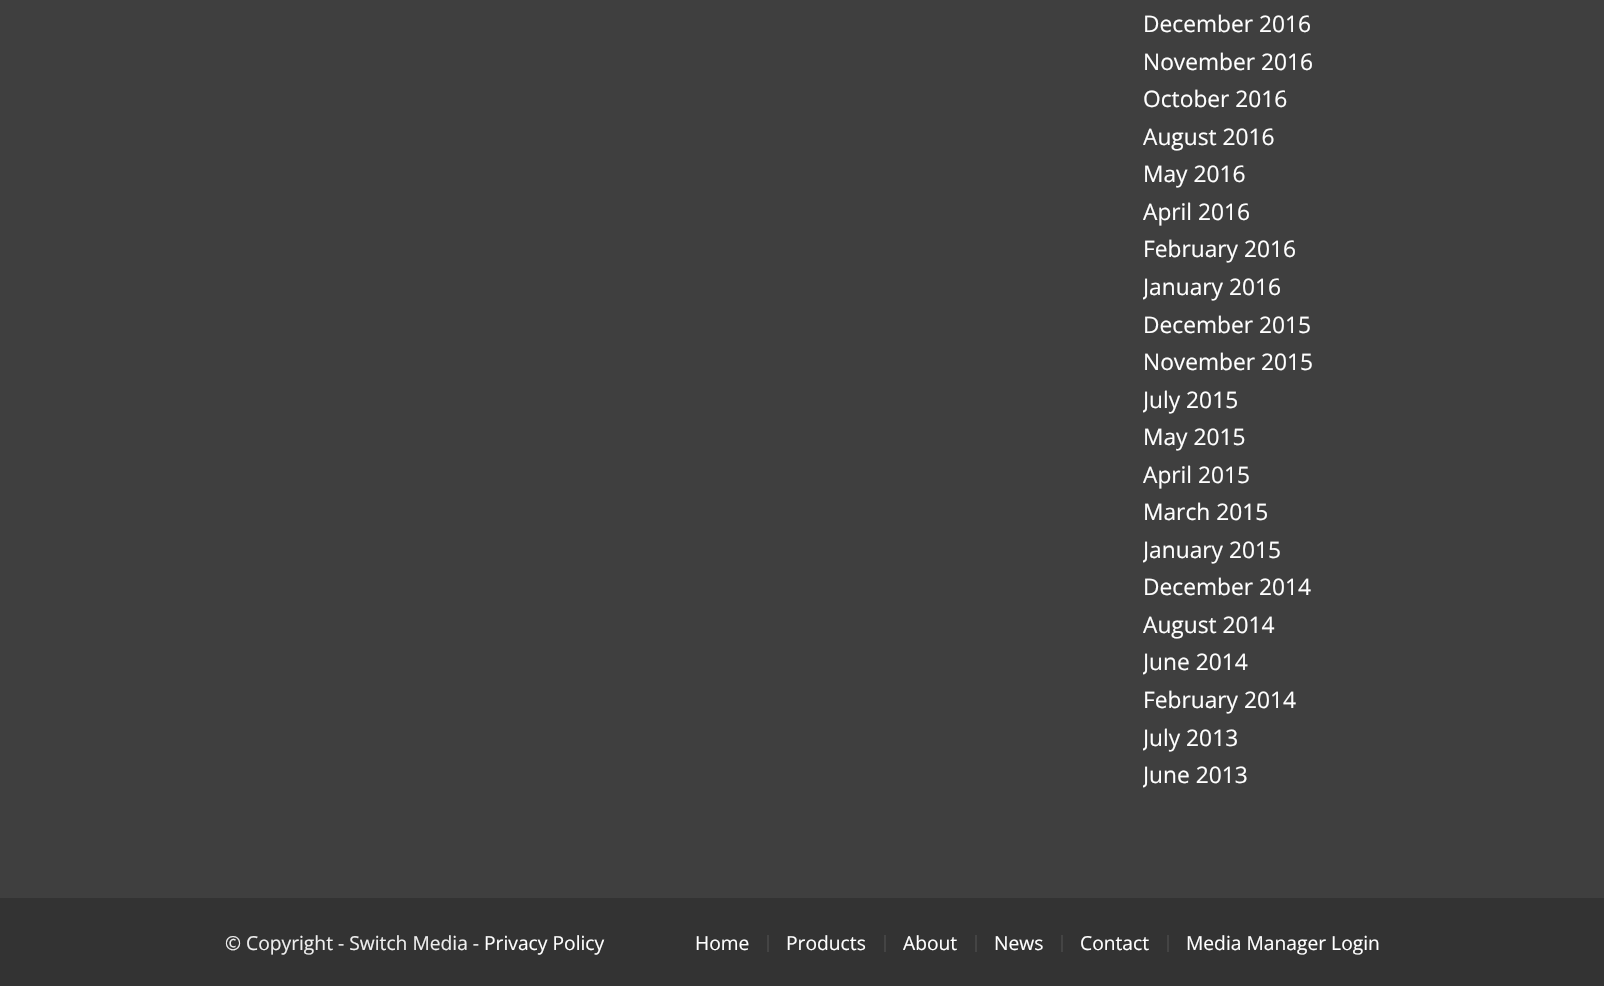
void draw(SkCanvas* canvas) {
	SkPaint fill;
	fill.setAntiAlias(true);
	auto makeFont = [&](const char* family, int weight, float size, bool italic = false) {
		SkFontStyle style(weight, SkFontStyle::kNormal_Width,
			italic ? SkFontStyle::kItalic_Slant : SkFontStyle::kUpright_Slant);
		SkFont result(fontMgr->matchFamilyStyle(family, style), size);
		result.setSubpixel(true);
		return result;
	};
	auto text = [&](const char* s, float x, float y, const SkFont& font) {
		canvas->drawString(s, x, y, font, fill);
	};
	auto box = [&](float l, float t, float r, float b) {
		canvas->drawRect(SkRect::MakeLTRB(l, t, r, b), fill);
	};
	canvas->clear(0xFF3F3F3F);
	fill.setColor(0xFF333333);
	box(0, 898, 1604, 986);
	fill.setColor(0xFF444444);
	box(767, 935, 769, 952);
	box(884, 935, 886, 952);
	box(975, 935, 977, 952);
	box(1061, 935, 1063, 952);
	box(1167, 935, 1169, 952);
	auto font1 = makeFont("Open Sans", 400, 22.75f);
	fill.setColor(0xFFFFFFFF);
	text("December 2016", 1143, 32, font1);
	text("November 2016", 1143, 70, font1);
	text("October 2016", 1143, 107, font1);
	text("August 2016", 1143, 145, font1);
	text("May 2016", 1143, 182, font1);
	text("April 2016", 1143, 220, font1);
	text("February 2016", 1143, 257, font1);
	canvas->save();
	canvas->clipRect(SkRect::MakeLTRB(1143, 0, 1379, 795));
	text("January 2016", 1143, 295, font1);
	canvas->restore();
	text("December 2015", 1143, 333, font1);
	text("November 2015", 1143, 370, font1);
	canvas->save();
	canvas->clipRect(SkRect::MakeLTRB(1143, 0, 1379, 795));
	text("July 2015", 1143, 408, font1);
	canvas->restore();
	text("May 2015", 1143, 445, font1);
	text("April 2015", 1143, 483, font1);
	text("March 2015", 1143, 520, font1);
	canvas->save();
	canvas->clipRect(SkRect::MakeLTRB(1143, 0, 1379, 795));
	text("January 2015", 1143, 558, font1);
	canvas->restore();
	text("December 2014", 1143, 595, font1);
	text("August 2014", 1143, 633, font1);
	canvas->save();
	canvas->clipRect(SkRect::MakeLTRB(1143, 0, 1379, 795));
	text("June 2014", 1143, 670, font1);
	canvas->restore();
	text("February 2014", 1143, 708, font1);
	canvas->save();
	canvas->clipRect(SkRect::MakeLTRB(1143, 0, 1379, 795));
	text("July 2013", 1143, 746, font1);
	text("June 2013", 1143, 783, font1);
	canvas->restore();
	auto font2 = makeFont("Open Sans", 400, 19.25f);
	fill.setColor(0xFFEEEEEE);
	text("© Copyright - Switch Media -", 225, 950, font2);
	fill.setColor(0xFFFFFFFF);
	text("Privacy Policy", 484, 950, font2);
	text("Home", 695, 950, font2);
	text("Products", 786, 950, font2);
	text("About", 903, 950, font2);
	text("News", 994, 950, font2);
	text("Contact", 1080, 950, font2);
	text("Media Manager Login", 1186, 950, font2);
}
